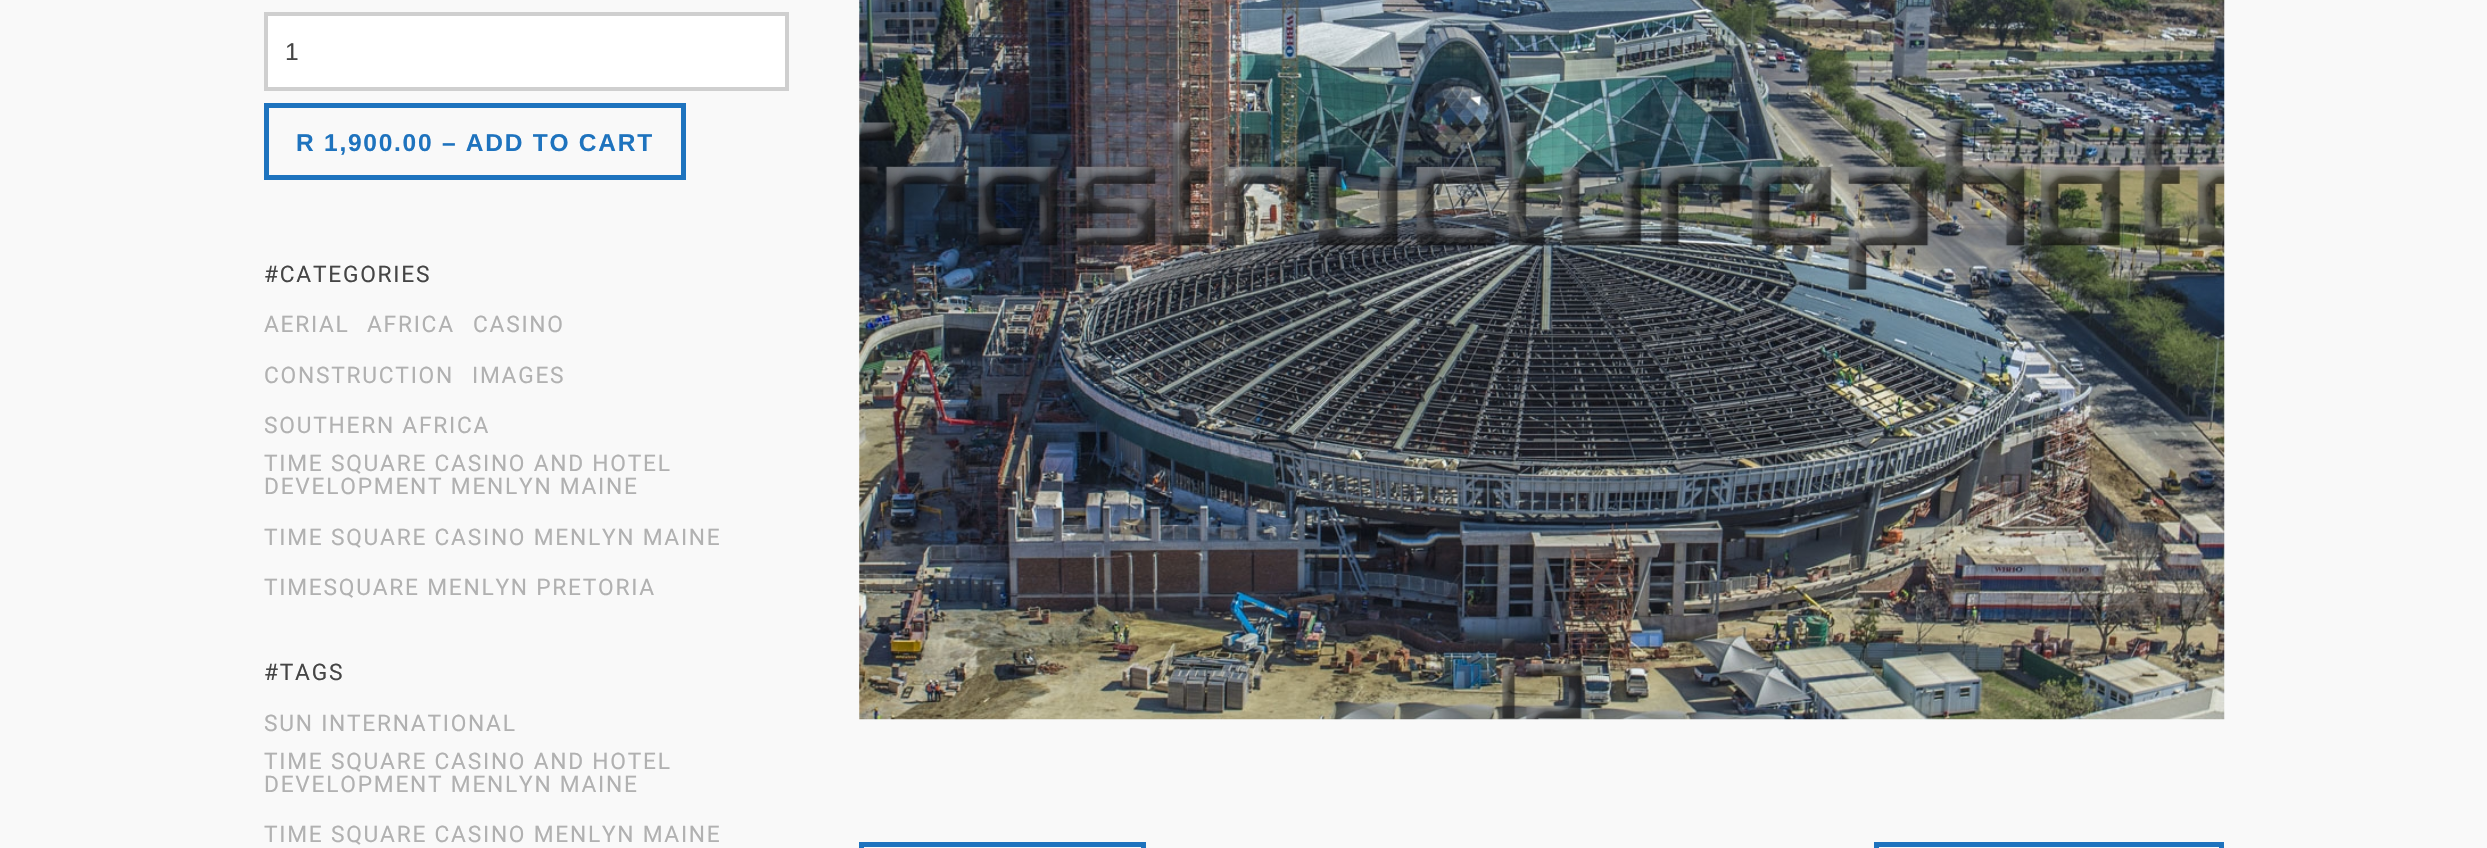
void draw(SkCanvas* canvas) {
	SkPaint fill;
	fill.setAntiAlias(true);
	auto makeFont = [&](const char* family, int weight, float size, bool italic = false) {
		SkFontStyle style(weight, SkFontStyle::kNormal_Width,
			italic ? SkFontStyle::kItalic_Slant : SkFontStyle::kUpright_Slant);
		SkFont result(fontMgr->matchFamilyStyle(family, style), size);
		result.setSubpixel(true);
		return result;
	};
	auto text = [&](const char* s, float x, float y, const SkFont& font) {
		canvas->drawString(s, x, y, font, fill);
	};
	auto spacedText = [&](const char* s, float x, float y, const SkFont& font, const SkPaint& ink, float letter, float word) {
		std::vector<SkGlyphID> glyphs(font.countText(s, strlen(s), SkTextEncoding::kUTF8));
		std::vector<float> xs(glyphs.size());
		font.textToGlyphs(s, strlen(s), SkTextEncoding::kUTF8, glyphs);
		font.getXPos(glyphs, xs, x);
		float extra = 0;
		for (size_t i = 0; i < glyphs.size(); i++) {
			xs[i] += extra;
			extra += letter + word * (glyphs[i] == font.unicharToGlyph(' '));
		}
		canvas->drawTextBlob(SkTextBlob::MakeFromPosHGlyphs(glyphs, xs, y, font), 0, 0, ink);
	};
	auto picture = [&](const char* path, float l, float t, float r, float b) {
		auto image = SkImages::DeferredFromEncodedData(SkData::MakeFromFileName(path));
		canvas->drawImageRect(image, SkRect::MakeLTRB(l, t, r, b), SkSamplingOptions());
	};
	canvas->clear(0xFFF9F9F9);
	fill.setColor(0xFFFFFFFF);
	canvas->drawRect(SkRect::MakeLTRB(266, 14, 787, 89), fill);
	fill.setStyle(SkPaint::kStroke_Style);
	fill.setStrokeWidth(4);
	fill.setColor(0xFFCFCFCF);
	canvas->drawRect(SkRect::MakeLTRB(266, 14, 787, 89), fill);
	fill.setStrokeWidth(5);
	fill.setColor(0xFF1E73BE);
	canvas->drawRect(SkRect::MakeLTRB(266.5f, 105.5f, 683.5f, 177.5f), fill);
	picture("image0.png", 859, 0, 2225, 720);
	canvas->drawRect(SkRect::MakeLTRB(861.5f, 844.5f, 1143.5f, 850.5f), fill);
	canvas->drawRect(SkRect::MakeLTRB(1876.5f, 844.5f, 2221.5f, 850.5f), fill);
	auto font1 = makeFont("Liberation Sans", 400, 24.5f);
	fill.setStyle(SkPaint::kFill_Style);
	fill.setColor(0xFF454545);
	text("1", 285, 60, font1);
	auto font2 = makeFont("Liberation Sans", 700, 24.5f);
	fill.setColor(0xFF1E73BE);
	spacedText("R 1,900.00 – ADD TO CART", 296, 151, font2, fill, 1.75f, 0);
	auto font3 = makeFont("Roboto", 400, 22.75f);
	fill.setColor(0xFF454545);
	spacedText("#CATEGORIES", 264, 282, font3, fill, 1.75f, 0);
	fill.setColor(0xFFB1B1B1);
	spacedText("AERIAL", 264, 332, font3, fill, 1.75f, 0);
	spacedText("AFRICA", 367, 332, font3, fill, 1.75f, 0);
	spacedText("CASINO", 473, 332, font3, fill, 1.75f, 0);
	spacedText("CONSTRUCTION", 264, 383, font3, fill, 1.75f, 0);
	spacedText("IMAGES", 472, 383, font3, fill, 1.75f, 0);
	spacedText("SOUTHERN AFRICA", 264, 433, font3, fill, 1.75f, 0);
	spacedText("TIME SQUARE CASINO AND HOTEL", 264, 471, font3, fill, 1.75f, 0);
	spacedText("DEVELOPMENT MENLYN MAINE", 264, 494, font3, fill, 1.75f, 0);
	spacedText("TIME SQUARE CASINO MENLYN MAINE", 264, 545, font3, fill, 1.75f, 0);
	spacedText("TIMESQUARE MENLYN PRETORIA", 264, 595, font3, fill, 1.75f, 0);
	fill.setColor(0xFF454545);
	spacedText("#TAGS", 264, 680, font3, fill, 1.75f, 0);
	fill.setColor(0xFFB1B1B1);
	spacedText("SUN INTERNATIONAL", 264, 731, font3, fill, 1.75f, 0);
	spacedText("TIME SQUARE CASINO AND HOTEL", 264, 769, font3, fill, 1.75f, 0);
	spacedText("DEVELOPMENT MENLYN MAINE", 264, 792, font3, fill, 1.75f, 0);
	spacedText("TIME SQUARE CASINO MENLYN MAINE", 264, 842, font3, fill, 1.75f, 0);
}
